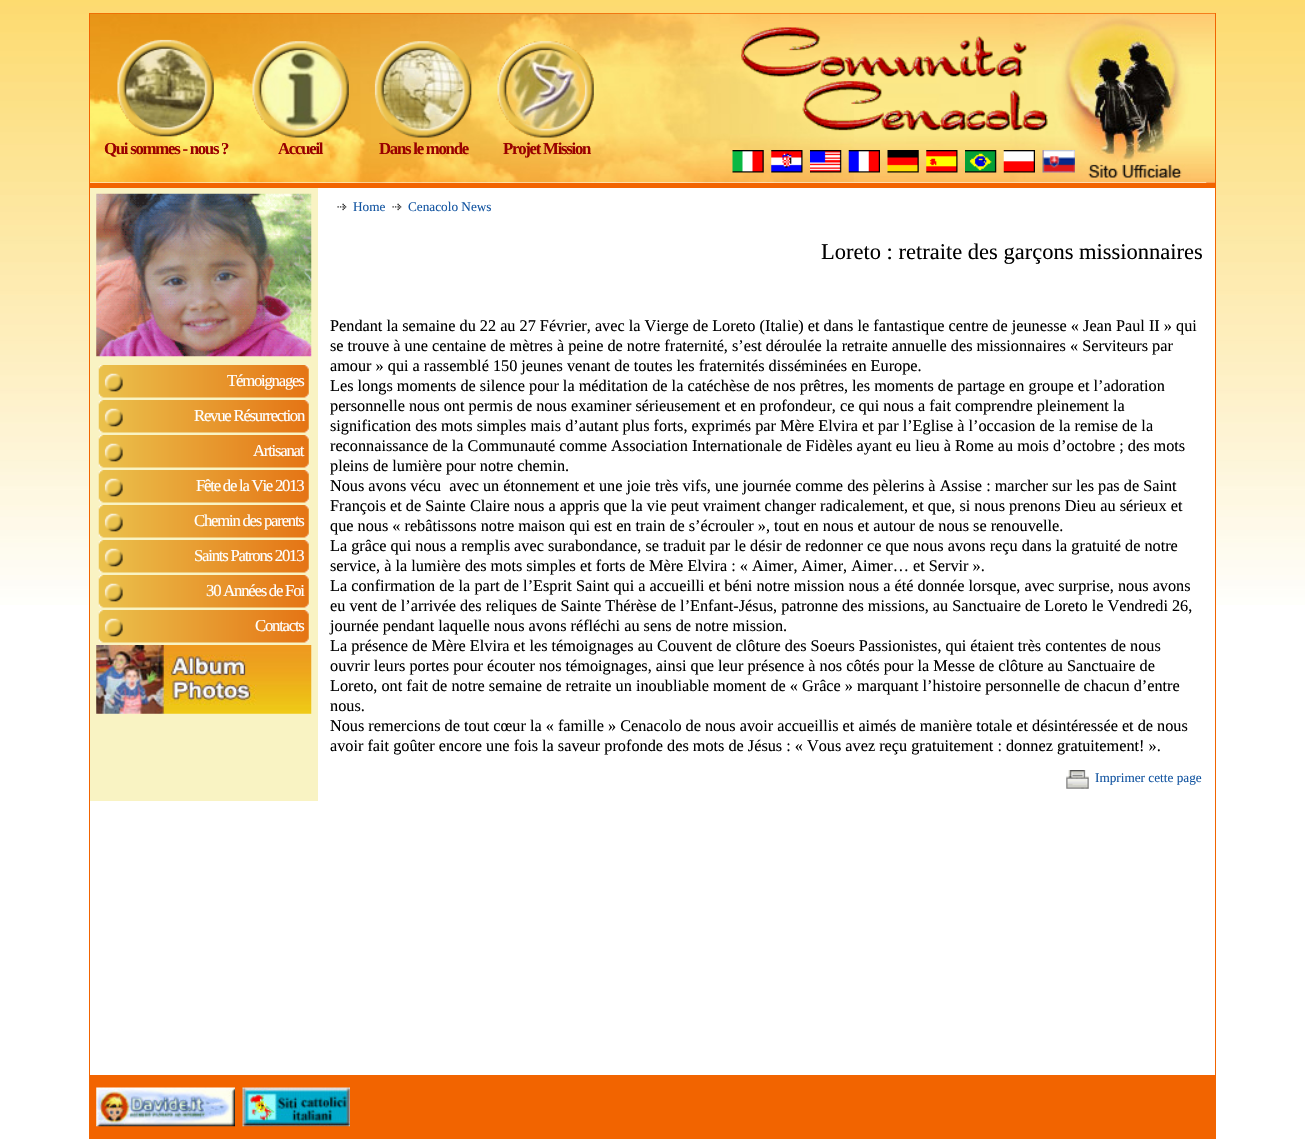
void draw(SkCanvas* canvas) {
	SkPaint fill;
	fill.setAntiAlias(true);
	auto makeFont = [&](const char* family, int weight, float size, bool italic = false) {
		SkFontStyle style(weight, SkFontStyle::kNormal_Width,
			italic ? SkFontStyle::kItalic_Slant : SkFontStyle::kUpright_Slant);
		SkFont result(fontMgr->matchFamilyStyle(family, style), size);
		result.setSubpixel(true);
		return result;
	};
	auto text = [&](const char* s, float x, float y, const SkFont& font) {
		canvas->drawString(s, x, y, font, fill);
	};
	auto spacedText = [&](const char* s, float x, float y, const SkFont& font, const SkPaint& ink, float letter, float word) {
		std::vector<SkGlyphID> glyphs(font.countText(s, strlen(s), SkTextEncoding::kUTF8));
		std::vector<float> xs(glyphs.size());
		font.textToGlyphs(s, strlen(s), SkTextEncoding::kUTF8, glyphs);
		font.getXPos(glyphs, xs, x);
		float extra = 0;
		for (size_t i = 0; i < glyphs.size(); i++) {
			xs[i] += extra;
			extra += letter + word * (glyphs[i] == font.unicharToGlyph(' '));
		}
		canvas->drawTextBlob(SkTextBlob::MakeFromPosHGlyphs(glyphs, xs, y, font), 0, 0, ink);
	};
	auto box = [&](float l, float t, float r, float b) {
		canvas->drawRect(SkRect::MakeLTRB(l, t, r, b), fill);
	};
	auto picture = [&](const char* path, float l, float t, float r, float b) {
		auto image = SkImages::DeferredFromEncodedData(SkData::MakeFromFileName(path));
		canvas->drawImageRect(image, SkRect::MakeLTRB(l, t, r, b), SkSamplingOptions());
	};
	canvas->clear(0xFFFFFFFF);
	picture("image0.png", 0, 0, 1305, 605);
	fill.setColor(0xFFFFFFFF);
	box(90, 182, 1215, 605);
	fill.setStyle(SkPaint::kStroke_Style);
	fill.setStrokeWidth(1);
	fill.setColor(0xFFF26400);
	canvas->drawRect(SkRect::MakeLTRB(89.5f, 13.5f, 1215.5f, 1138.5f), fill);
	picture("image1.png", 90, 13, 1215, 183);
	picture("image2.png", 117, 39, 214, 137);
	picture("image3.png", 252, 41, 349, 138);
	picture("image4.png", 374, 41, 472, 138);
	picture("image5.png", 497, 41, 594, 138);
	picture("image6.png", 741, 27, 1048, 131);
	picture("image7.png", 732, 150, 764, 173);
	picture("image8.png", 771, 150, 803, 173);
	picture("image9.png", 810, 150, 842, 173);
	picture("image10.png", 848, 150, 880, 173);
	picture("image11.png", 887, 150, 919, 173);
	picture("image12.png", 926, 150, 958, 173);
	picture("image13.png", 965, 150, 997, 173);
	picture("image14.png", 1003, 150, 1035, 173);
	picture("image15.png", 1042, 150, 1075, 173);
	fill.setStyle(SkPaint::kFill_Style);
	box(90, 183, 1215, 188);
	picture("image16.png", 1206, 182, 1215, 183);
	fill.setColor(0xFFF9F3C3);
	box(90, 188, 318, 801);
	picture("image17.png", 96, 193, 312, 357);
	picture("image18.png", 98, 365, 309, 398);
	picture("image18.png", 98, 400, 309, 433);
	picture("image18.png", 98, 435, 309, 468);
	picture("image18.png", 98, 470, 309, 503);
	picture("image18.png", 98, 505, 309, 538);
	picture("image18.png", 98, 540, 309, 573);
	picture("image19.png", 98, 575, 309, 608);
	picture("image18.png", 98, 610, 309, 643);
	picture("image20.png", 96, 645, 312, 714);
	picture("image21.png", 337, 203, 347, 211);
	picture("image21.png", 392, 203, 402, 211);
	picture("image22.png", 1066, 770, 1089, 789);
	fill.setColor(0xFFF26400);
	box(90, 1075, 1215, 1138);
	picture("image23.png", 96, 1087, 235, 1127);
	picture("image24.png", 242, 1087, 350, 1127);
	auto font1 = makeFont("Liberation Serif", 700, 16.75f);
	fill.setColor(0xFF990000);
	spacedText("Qui sommes - nous ?", 104, 154, font1, fill, -1.25f, 0);
	spacedText("Accueil", 278, 154, font1, fill, -1.25f, 0);
	spacedText("Dans le monde", 379, 154, font1, fill, -1.25f, 0);
	spacedText("Projet Mission", 503, 154, font1, fill, -1.25f, 0);
	auto font2 = makeFont("Liberation Serif", 400, 16.75f);
	fill.setColor(0xFFFFFFFF);
	spacedText("Témoignages", 227, 386, font2, fill, -1.25f, 0);
	spacedText("Revue Résurrection", 194, 421, font2, fill, -1.25f, 0);
	spacedText("Artisanat", 253, 456, font2, fill, -1.25f, 0);
	spacedText("Fête de la Vie 2013", 196, 491, font2, fill, -1.25f, 0);
	spacedText("Chemin des parents", 194, 526, font2, fill, -1.25f, 0);
	spacedText("Saints Patrons 2013", 194, 561, font2, fill, -1.25f, 0);
	spacedText("30 Années de Foi", 206, 596, font2, fill, -1.25f, 0);
	spacedText("Contacts", 255, 631, font2, fill, -1.25f, 0);
	auto font3 = makeFont("Liberation Serif", 400, 13.25f);
	fill.setColor(0xFF1355A1);
	text("Home", 353, 211, font3);
	text("Cenacolo News", 408, 211, font3);
	auto font4 = makeFont("Liberation Serif", 400, 22.5f);
	fill.setColor(0xFF000000);
	text("Loreto : retraite des garçons missionnaires", 821, 259, font4);
	auto font5 = makeFont("Liberation Serif", 400, 16.25f);
	text("Pendant la semaine du 22 au 27 Février, avec la Vierge de Loreto (Italie) et dans le fantastique centre de jeunesse « Jean Paul II » qui", 330, 331, font5);
	text("se trouve à une centaine de mètres à peine de notre fraternité, s’est déroulée la retraite annuelle des missionnaires « Serviteurs par", 330, 351, font5);
	text("amour » qui a rassemblé 150 jeunes venant de toutes les fraternités disséminées en Europe.", 330, 371, font5);
	text("Les longs moments de silence pour la méditation de la catéchèse de nos prêtres, les moments de partage en groupe et l’adoration", 330, 391, font5);
	text("personnelle nous ont permis de nous examiner sérieusement et en profondeur, ce qui nous a fait comprendre pleinement la", 330, 411, font5);
	text("signification des mots simples mais d’autant plus forts, exprimés par Mère Elvira et par l’Eglise à l’occasion de la remise de la", 330, 431, font5);
	text("reconnaissance de la Communauté comme Association Internationale de Fidèles ayant eu lieu à Rome au mois d’octobre ; des mots", 330, 451, font5);
	text("pleins de lumière pour notre chemin.", 330, 471, font5);
	text("Nous avons vécu  avec un étonnement et une joie très vifs, une journée comme des pèlerins à Assise : marcher sur les pas de Saint", 330, 491, font5);
	text("François et de Sainte Claire nous a appris que la vie peut vraiment changer radicalement, et que, si nous prenons Dieu au sérieux et", 330, 511, font5);
	text("que nous « rebâtissons notre maison qui est en train de s’écrouler », tout en nous et autour de nous se renouvelle.", 330, 531, font5);
	text("La grâce qui nous a remplis avec surabondance, se traduit par le désir de redonner ce que nous avons reçu dans la gratuité de notre", 330, 551, font5);
	text("service, à la lumière des mots simples et forts de Mère Elvira : « Aimer, Aimer, Aimer… et Servir ».", 330, 571, font5);
	text("La confirmation de la part de l’Esprit Saint qui a accueilli et béni notre mission nous a été donnée lorsque, avec surprise, nous avons", 330, 591, font5);
	text("eu vent de l’arrivée des reliques de Sainte Thérèse de l’Enfant-Jésus, patronne des missions, au Sanctuaire de Loreto le Vendredi 26,", 330, 611, font5);
	text("journée pendant laquelle nous avons réfléchi au sens de notre mission.", 330, 631, font5);
	text("La présence de Mère Elvira et les témoignages au Couvent de clôture des Soeurs Passionistes, qui étaient très contentes de nous", 330, 651, font5);
	text("ouvrir leurs portes pour écouter nos témoignages, ainsi que leur présence à nos côtés pour la Messe de clôture au Sanctuaire de", 330, 671, font5);
	text("Loreto, ont fait de notre semaine de retraite un inoubliable moment de « Grâce » marquant l’histoire personnelle de chacun d’entre", 330, 691, font5);
	text("nous.", 330, 711, font5);
	text("Nous remercions de tout cœur la « famille » Cenacolo de nous avoir accueillis et aimés de manière totale et désintéressée et de nous", 330, 731, font5);
	text("avoir fait goûter encore une fois la saveur profonde des mots de Jésus : « Vous avez reçu gratuitement : donnez gratuitement! ».", 330, 751, font5);
	fill.setColor(0xFF1355A1);
	text("Imprimer cette page", 1095, 782, font3);
}
